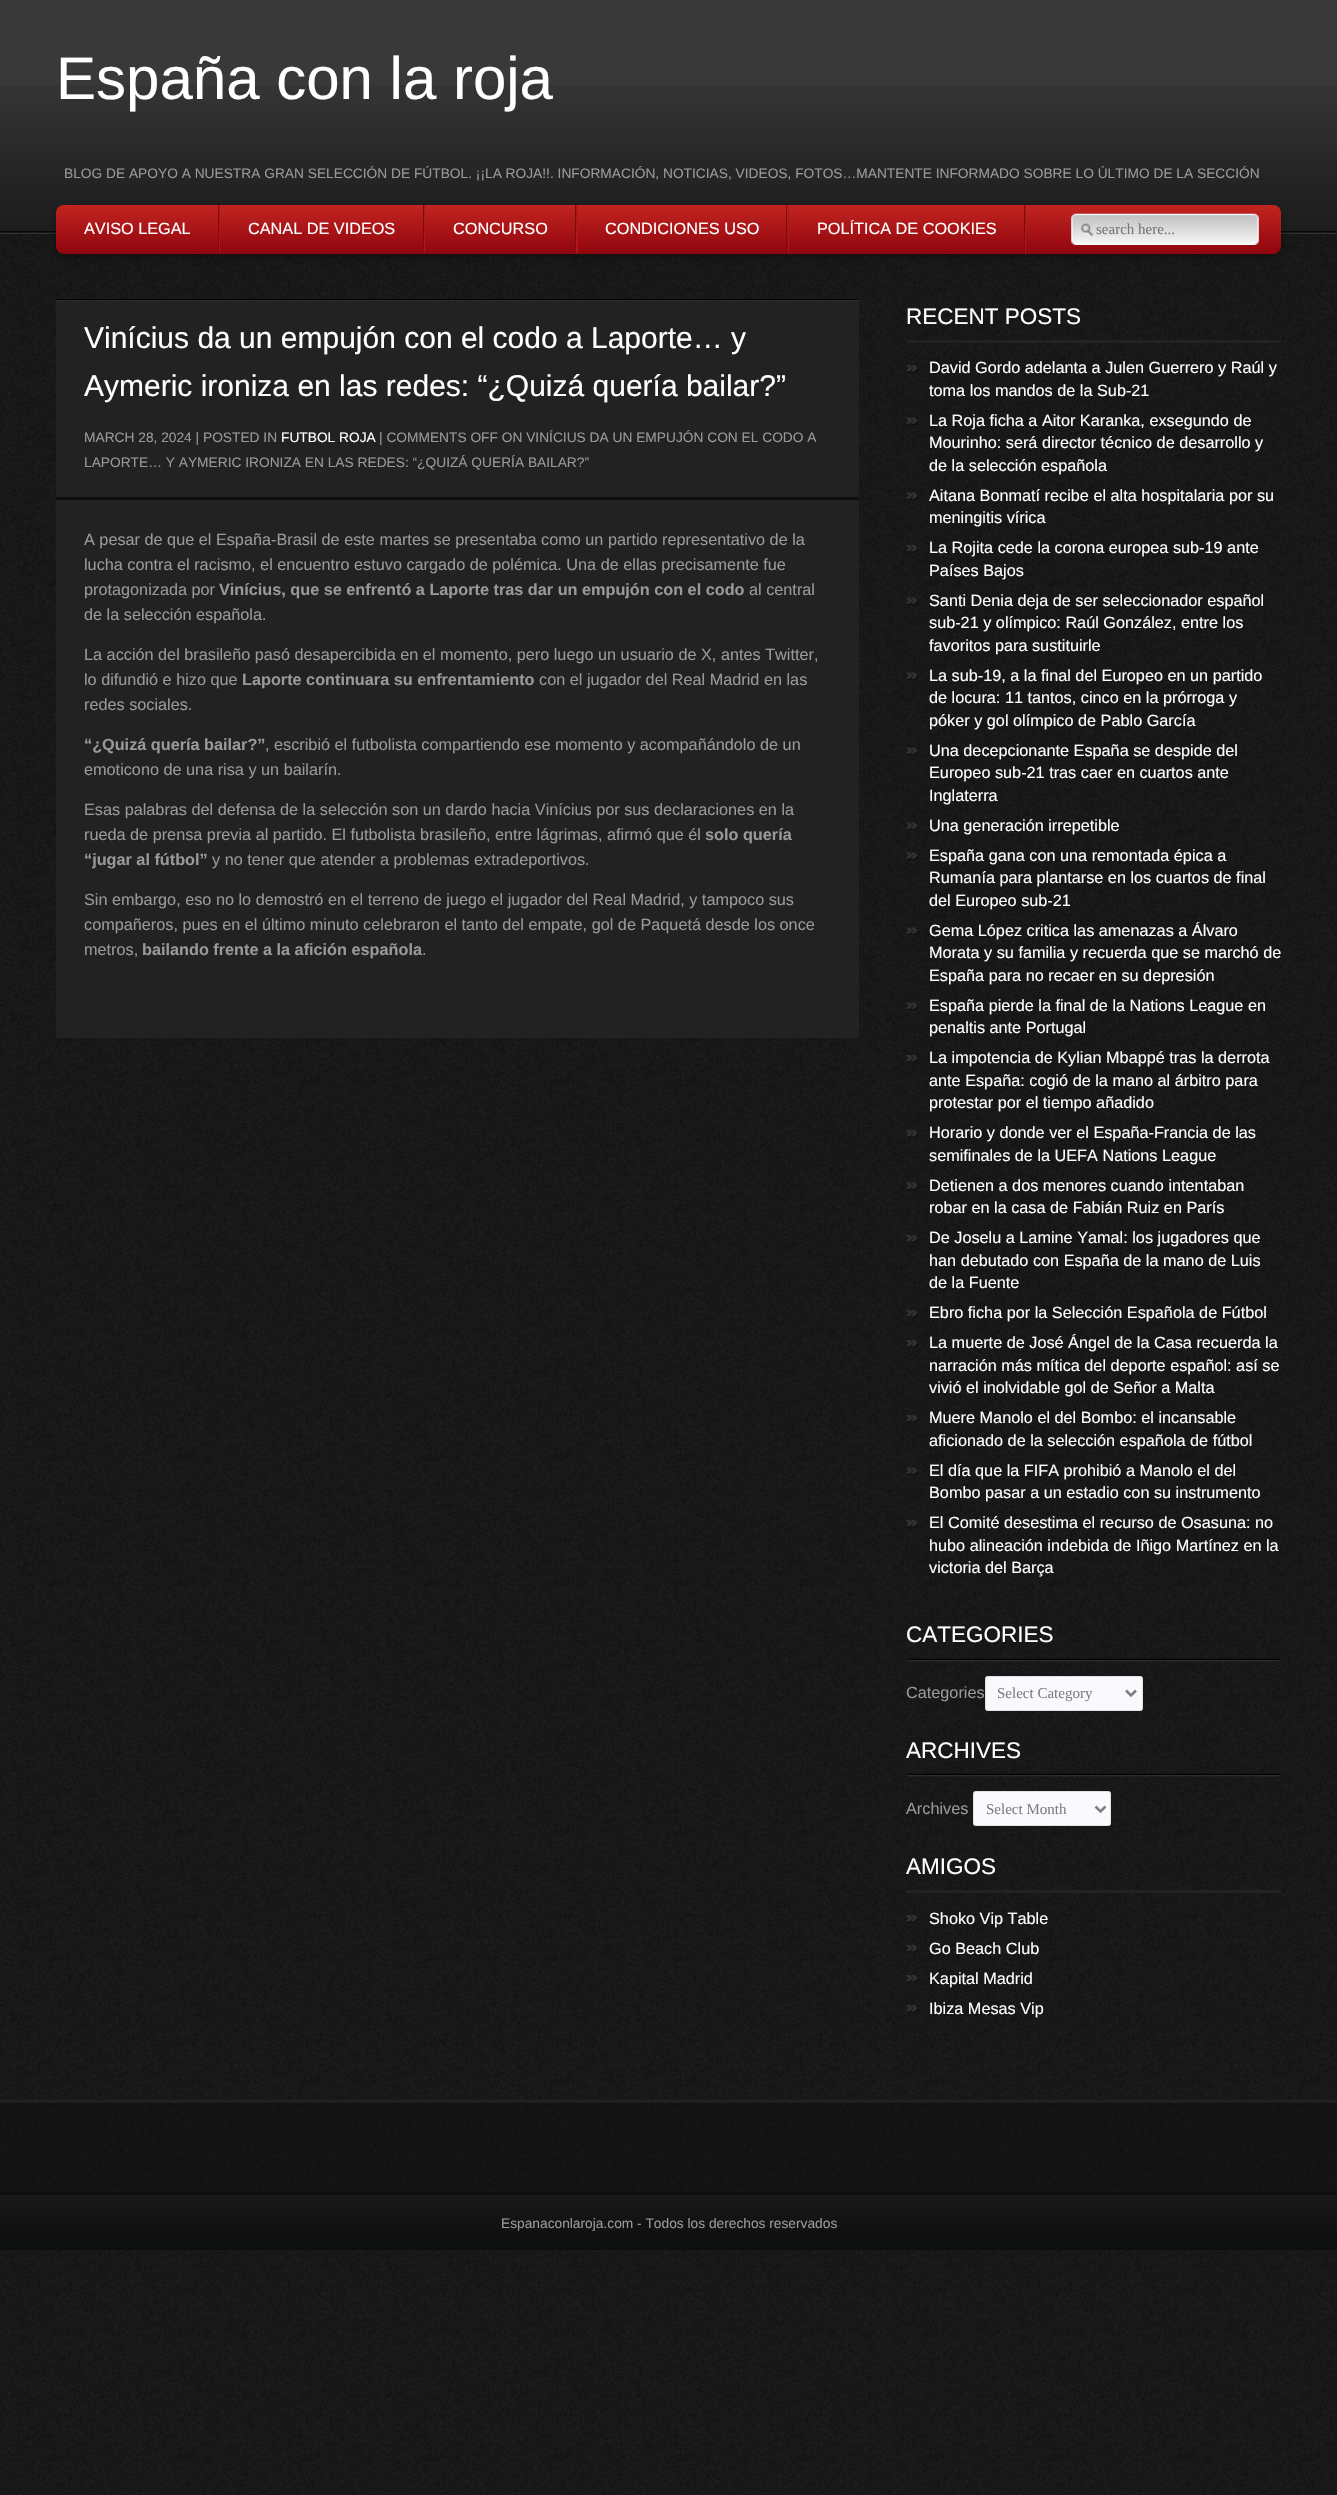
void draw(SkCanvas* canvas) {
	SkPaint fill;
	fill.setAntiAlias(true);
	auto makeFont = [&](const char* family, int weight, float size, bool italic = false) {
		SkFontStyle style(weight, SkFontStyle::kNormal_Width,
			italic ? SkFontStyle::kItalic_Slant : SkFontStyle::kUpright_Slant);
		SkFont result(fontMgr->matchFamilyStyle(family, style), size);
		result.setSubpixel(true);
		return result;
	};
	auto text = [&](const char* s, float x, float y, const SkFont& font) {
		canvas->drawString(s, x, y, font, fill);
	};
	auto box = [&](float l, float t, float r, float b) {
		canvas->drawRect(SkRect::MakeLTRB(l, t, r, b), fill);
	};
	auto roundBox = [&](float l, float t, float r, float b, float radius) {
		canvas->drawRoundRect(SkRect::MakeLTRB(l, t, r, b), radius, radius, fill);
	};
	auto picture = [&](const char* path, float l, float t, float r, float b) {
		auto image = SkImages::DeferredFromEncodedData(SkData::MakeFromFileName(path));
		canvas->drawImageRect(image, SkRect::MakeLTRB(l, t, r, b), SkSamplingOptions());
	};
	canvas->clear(0xFFFFFFFF);
	picture("image0.png", 0, 234, 1337, 2495);
	fill.setColor(0xFF393939);
	box(0, 0, 1337, 234);
	picture("image1.png", 0, 85, 1337, 234);
	fill.setColor(0x59000000);
	fill.setMaskFilter(SkMaskFilter::MakeBlur(kNormal_SkBlurStyle, 6));
	canvas->drawRoundRect(SkRect::MakeLTRB(56, 208, 1281, 256), 8, 8, fill);
	fill.setMaskFilter(nullptr);
	{
		const SkColor colors[] = {0xFFC32420, 0xFF8F050E};
		const float stops[] = {0, 1};
		const SkPoint ends[] = {{669, 205}, {669, 254}};
		fill.setShader(SkGradientShader::MakeLinear(ends, colors, stops, 2, SkTileMode::kClamp));
		fill.setAlpha(255);
	}
	roundBox(56, 205, 1281, 254, 8);
	fill.setShader(nullptr);
	fill.setColor(0xFF7B0D0F);
	box(218, 205, 219, 254);
	box(423, 205, 424, 254);
	fill.setColor(0xFFB11719);
	canvas->drawPath(SkPathBuilder().moveTo(219, 254).lineTo(219, 205).lineTo(220, 205).lineTo(220, 252).close().detach(), fill);
	fill.setColor(0xFF7B0D0F);
	box(575, 205, 576, 254);
	fill.setColor(0xFFB11719);
	canvas->drawPath(SkPathBuilder().moveTo(424, 254).lineTo(424, 205).lineTo(425, 205).lineTo(425, 252).close().detach(), fill);
	fill.setColor(0xFF7B0D0F);
	box(786, 205, 787, 254);
	fill.setColor(0xFFB11719);
	canvas->drawPath(SkPathBuilder().moveTo(576, 254).lineTo(576, 205).lineTo(578, 205).lineTo(578, 252).close().detach(), fill);
	box(1025, 205, 1026, 254);
	fill.setColor(0xFF7B0D0F);
	canvas->drawPath(SkPathBuilder().moveTo(1025, 205).lineTo(1025, 254).lineTo(1024, 252).lineTo(1024, 205).close().detach(), fill);
	fill.setColor(0xFFB11719);
	canvas->drawPath(SkPathBuilder().moveTo(788, 254).lineTo(788, 205).lineTo(789, 205).lineTo(789, 252).close().detach(), fill);
	picture("image2.png", 1071, 213, 1259, 245);
	fill.setColor(0xFF222222);
	box(0, 2100, 1337, 2103);
	box(56, 299, 859, 1038);
	picture("image3.png", 56, 299, 859, 301);
	fill.setColor(0xFF0E0E0E);
	box(56, 497, 859, 500);
	fill.setColor(0xFF222222);
	box(906, 340, 1281, 343);
	picture("image4.png", 906, 365, 919, 373);
	picture("image5.png", 906, 417, 919, 425);
	picture("image6.png", 906, 492, 919, 500);
	picture("image7.png", 906, 545, 919, 553);
	picture("image8.png", 906, 597, 919, 605);
	picture("image9.png", 906, 672, 919, 680);
	picture("image10.png", 906, 747, 919, 755);
	picture("image11.png", 906, 822, 919, 830);
	picture("image12.png", 906, 852, 919, 860);
	picture("image13.png", 906, 927, 919, 935);
	picture("image14.png", 906, 1002, 919, 1010);
	picture("image15.png", 906, 1055, 919, 1063);
	picture("image16.png", 906, 1130, 919, 1138);
	picture("image17.png", 906, 1182, 919, 1190);
	picture("image18.png", 906, 1235, 919, 1243);
	picture("image19.png", 906, 1310, 919, 1318);
	picture("image20.png", 906, 1340, 919, 1348);
	picture("image21.png", 906, 1415, 919, 1423);
	picture("image22.png", 906, 1467, 919, 1475);
	picture("image23.png", 906, 1520, 919, 1528);
	picture("image24.png", 906, 1658, 1281, 1662);
	fill.setColor(0xFFFAFAFE);
	canvas->drawRoundRect(SkRect::MakeLTRB(985.5f, 1676.5f, 1142.5f, 1710.5f), 2, 2, fill);
	fill.setStyle(SkPaint::kStroke_Style);
	fill.setStrokeWidth(1);
	fill.setColor(0xFFE2E2E6);
	canvas->drawRoundRect(SkRect::MakeLTRB(985.5f, 1676.5f, 1142.5f, 1710.5f), 2, 2, fill);
	fill.setStrokeWidth(2.5f);
	fill.setColor(0xFF7E7E7E);
	canvas->drawPath(SkPathBuilder().moveTo(1126, 1690.5f).lineTo(1131, 1695.5f).lineTo(1136, 1690.5f).detach(), fill);
	picture("image25.png", 906, 1773, 1281, 1777);
	fill.setStyle(SkPaint::kFill_Style);
	fill.setColor(0xFFFAFAFE);
	canvas->drawRoundRect(SkRect::MakeLTRB(973.5f, 1791.5f, 1110.5f, 1825.5f), 2, 2, fill);
	fill.setStyle(SkPaint::kStroke_Style);
	fill.setStrokeWidth(1);
	fill.setColor(0xFFE2E2E6);
	canvas->drawRoundRect(SkRect::MakeLTRB(973.5f, 1791.5f, 1110.5f, 1825.5f), 2, 2, fill);
	fill.setStrokeWidth(2.5f);
	fill.setColor(0xFF7E7E7E);
	canvas->drawPath(SkPathBuilder().moveTo(1095.5f, 1806.5f).lineTo(1100.5f, 1811.5f).lineTo(1105.5f, 1806.5f).detach(), fill);
	fill.setStyle(SkPaint::kFill_Style);
	fill.setColor(0xFF222222);
	box(906, 1890, 1281, 1893);
	picture("image21.png", 906, 1915, 919, 1923);
	picture("image26.png", 906, 1945, 919, 1953);
	picture("image27.png", 906, 1975, 919, 1983);
	picture("image16.png", 906, 2005, 919, 2013);
	picture("image28.png", 0, 2102, 1337, 2192);
	picture("image29.png", 0, 2195, 1337, 2250);
	fill.setColor(0xFF0E0E0E);
	box(0, 2192, 1337, 2195);
	auto font1 = makeFont("Liberation Sans", 400, 60);
	fill.setColor(0xFFFFFFFF);
	text("España con la roja", 56, 99, font1);
	auto font2 = makeFont("Liberation Sans", 400, 13.75f);
	fill.setColor(0xFF999999);
	text("BLOG DE APOYO A NUESTRA GRAN SELECCIÓN DE FÚTBOL. ¡¡LA ROJA!!. INFORMACIÓN, NOTICIAS, VIDEOS, FOTOS…MANTENTE INFORMADO SOBRE LO ÚLTIMO DE LA SECCIÓN", 64, 178, font2);
	auto font3 = makeFont("Liberation Sans", 400, 16.25f);
	fill.setColor(0xFFFFFFFF);
	text("AVISO LEGAL", 84, 234, font3);
	text("CANAL DE VIDEOS", 248, 234, font3);
	text("CONCURSO", 453, 234, font3);
	text("CONDICIONES USO", 605, 234, font3);
	text("POLÍTICA DE COOKIES", 817, 234, font3);
	auto font4 = makeFont("Liberation Serif", 400, 15);
	fill.setColor(0xFF757575);
	text("search here...", 1096, 234, font4);
	auto font5 = makeFont("Liberation Sans", 400, 30);
	fill.setColor(0xFFFFFFFF);
	text("Vinícius da un empujón con el codo a Laporte… y", 84, 348, font5);
	text("Aymeric ironiza en las redes: “¿Quizá quería bailar?”", 84, 396, font5);
	fill.setColor(0xFF999999);
	text("MARCH 28, 2024 | POSTED IN", 84, 442, font2);
	fill.setColor(0xFFFFFFFF);
	text("FUTBOL ROJA", 281, 442, font2);
	fill.setColor(0xFF999999);
	text("| COMMENTS OFF ON VINÍCIUS DA UN EMPUJÓN CON EL CODO A", 379, 442, font2);
	text("LAPORTE… Y AYMERIC IRONIZA EN LAS REDES: “¿QUIZÁ QUERÍA BAILAR?”", 84, 467, font2);
	text("A pesar de que el España-Brasil de este martes se presentaba como un partido representativo de la", 84, 545, font3);
	text("lucha contra el racismo, el encuentro estuvo cargado de polémica. Una de ellas precisamente fue", 84, 570, font3);
	text("protagonizada por", 84, 595, font3);
	auto font6 = makeFont("Liberation Sans", 700, 16.25f);
	text("Vinícius, que se enfrentó a Laporte tras dar un empujón con el codo", 219, 595, font6);
	text("al central", 749, 595, font3);
	text("de la selección española.", 84, 620, font3);
	text("La acción del brasileño pasó desapercibida en el momento, pero luego un usuario de X, antes Twitter,", 84, 660, font3);
	text("lo difundió e hizo que", 84, 685, font3);
	text("Laporte continuara su enfrentamiento", 242, 685, font6);
	text("con el jugador del Real Madrid en las", 539, 685, font3);
	text("redes sociales.", 84, 710, font3);
	text("“¿Quizá quería bailar?”", 84, 750, font6);
	text(", escribió el futbolista compartiendo ese momento y acompañándolo de un", 265, 750, font3);
	text("emoticono de una risa y un bailarín.", 84, 775, font3);
	text("Esas palabras del defensa de la selección son un dardo hacia Vinícius por sus declaraciones en la", 84, 815, font3);
	text("rueda de prensa previa al partido. El futbolista brasileño, entre lágrimas, afirmó que él", 84, 840, font3);
	text("solo quería", 705, 840, font6);
	text("“jugar al fútbol”", 84, 865, font6);
	text("y no tener que atender a problemas extradeportivos.", 212, 865, font3);
	text("Sin embargo, eso no lo demostró en el terreno de juego el jugador del Real Madrid, y tampoco sus", 84, 905, font3);
	text("compañeros, pues en el último minuto celebraron el tanto del empate, gol de Paquetá desde los once", 84, 930, font3);
	text("metros,", 84, 955, font3);
	text("bailando frente a la afición española", 142, 955, font6);
	text(".", 422, 955, font3);
	auto font7 = makeFont("Liberation Sans", 400, 22.5f);
	fill.setColor(0xFFFFFFFF);
	text("RECENT POSTS", 906, 324, font7);
	text("David Gordo adelanta a Julen Guerrero y Raúl y", 929, 373, font3);
	text("toma los mandos de la Sub-21", 929, 396, font3);
	text("La Roja ficha a Aitor Karanka, exsegundo de", 929, 426, font3);
	text("Mourinho: será director técnico de desarrollo y", 929, 448, font3);
	text("de la selección española", 929, 471, font3);
	text("Aitana Bonmatí recibe el alta hospitalaria por su", 929, 501, font3);
	text("meningitis vírica", 929, 523, font3);
	text("La Rojita cede la corona europea sub-19 ante", 929, 553, font3);
	text("Países Bajos", 929, 576, font3);
	text("Santi Denia deja de ser seleccionador español", 929, 606, font3);
	text("sub-21 y olímpico: Raúl González, entre los", 929, 628, font3);
	text("favoritos para sustituirle", 929, 651, font3);
	text("La sub-19, a la final del Europeo en un partido", 929, 681, font3);
	text("de locura: 11 tantos, cinco en la prórroga y", 929, 703, font3);
	text("póker y gol olímpico de Pablo García", 929, 726, font3);
	text("Una decepcionante España se despide del", 929, 756, font3);
	text("Europeo sub-21 tras caer en cuartos ante", 929, 778, font3);
	text("Inglaterra", 929, 801, font3);
	text("Una generación irrepetible", 929, 831, font3);
	text("España gana con una remontada épica a", 929, 861, font3);
	text("Rumanía para plantarse en los cuartos de final", 929, 883, font3);
	text("del Europeo sub-21", 929, 906, font3);
	text("Gema López critica las amenazas a Álvaro", 929, 936, font3);
	text("Morata y su familia y recuerda que se marchó de", 929, 958, font3);
	text("España para no recaer en su depresión", 929, 981, font3);
	text("España pierde la final de la Nations League en", 929, 1011, font3);
	text("penaltis ante Portugal", 929, 1033, font3);
	text("La impotencia de Kylian Mbappé tras la derrota", 929, 1063, font3);
	text("ante España: cogió de la mano al árbitro para", 929, 1086, font3);
	text("protestar por el tiempo añadido", 929, 1108, font3);
	text("Horario y donde ver el España-Francia de las", 929, 1138, font3);
	text("semifinales de la UEFA Nations League", 929, 1161, font3);
	text("Detienen a dos menores cuando intentaban", 929, 1191, font3);
	text("robar en la casa de Fabián Ruiz en París", 929, 1213, font3);
	text("De Joselu a Lamine Yamal: los jugadores que", 929, 1243, font3);
	text("han debutado con España de la mano de Luis", 929, 1266, font3);
	text("de la Fuente", 929, 1288, font3);
	text("Ebro ficha por la Selección Española de Fútbol", 929, 1318, font3);
	text("La muerte de José Ángel de la Casa recuerda la", 929, 1348, font3);
	text("narración más mítica del deporte español: así se", 929, 1371, font3);
	text("vivió el inolvidable gol de Señor a Malta", 929, 1393, font3);
	text("Muere Manolo el del Bombo: el incansable", 929, 1423, font3);
	text("aficionado de la selección española de fútbol", 929, 1446, font3);
	text("El día que la FIFA prohibió a Manolo el del", 929, 1476, font3);
	text("Bombo pasar a un estadio con su instrumento", 929, 1498, font3);
	text("El Comité desestima el recurso de Osasuna: no", 929, 1528, font3);
	text("hubo alineación indebida de Iñigo Martínez en la", 929, 1551, font3);
	text("victoria del Barça", 929, 1573, font3);
	text("CATEGORIES", 906, 1642, font7);
	fill.setColor(0xFF999999);
	text("Categories", 906, 1698, font3);
	fill.setColor(0xFF7E7E7E);
	text("Select Category", 997, 1698, font4);
	fill.setColor(0xFFFFFFFF);
	text("ARCHIVES", 906, 1758, font7);
	fill.setColor(0xFF999999);
	text("Archives", 906, 1814, font3);
	fill.setColor(0xFF7E7E7E);
	text("Select Month", 986, 1814, font4);
	fill.setColor(0xFFFFFFFF);
	text("AMIGOS", 906, 1874, font7);
	text("Shoko Vip Table", 929, 1924, font3);
	text("Go Beach Club", 929, 1954, font3);
	text("Kapital Madrid", 929, 1984, font3);
	text("Ibiza Mesas Vip", 929, 2014, font3);
	fill.setColor(0xFF999999);
	text("Espanaconlaroja.com - Todos los derechos reservados", 501, 2228, font2);
}
